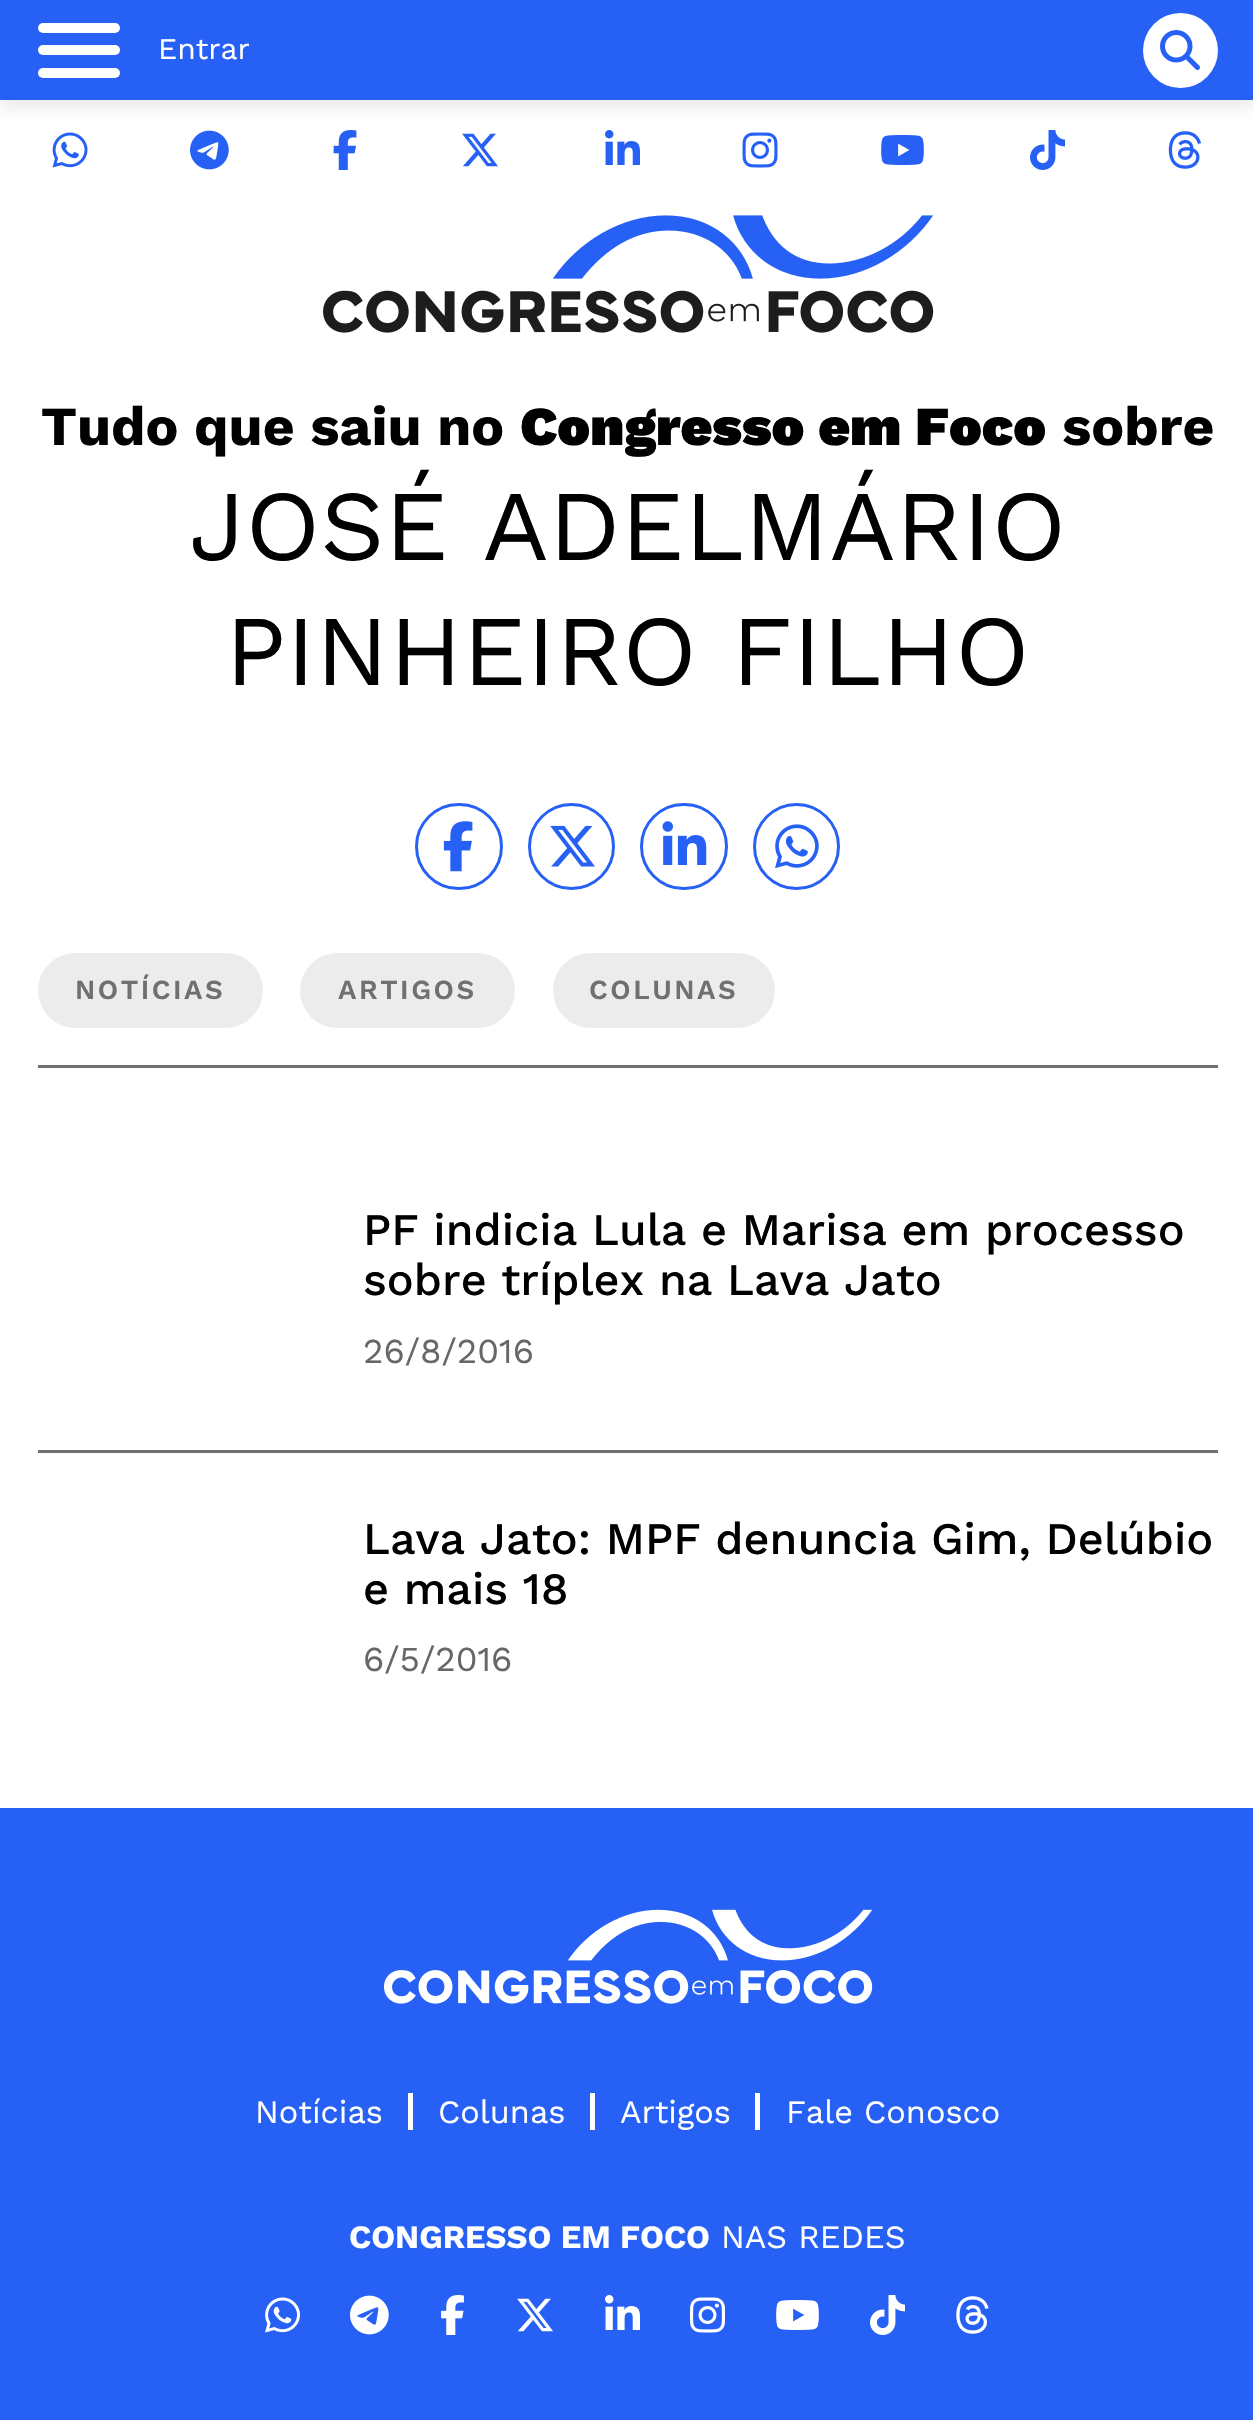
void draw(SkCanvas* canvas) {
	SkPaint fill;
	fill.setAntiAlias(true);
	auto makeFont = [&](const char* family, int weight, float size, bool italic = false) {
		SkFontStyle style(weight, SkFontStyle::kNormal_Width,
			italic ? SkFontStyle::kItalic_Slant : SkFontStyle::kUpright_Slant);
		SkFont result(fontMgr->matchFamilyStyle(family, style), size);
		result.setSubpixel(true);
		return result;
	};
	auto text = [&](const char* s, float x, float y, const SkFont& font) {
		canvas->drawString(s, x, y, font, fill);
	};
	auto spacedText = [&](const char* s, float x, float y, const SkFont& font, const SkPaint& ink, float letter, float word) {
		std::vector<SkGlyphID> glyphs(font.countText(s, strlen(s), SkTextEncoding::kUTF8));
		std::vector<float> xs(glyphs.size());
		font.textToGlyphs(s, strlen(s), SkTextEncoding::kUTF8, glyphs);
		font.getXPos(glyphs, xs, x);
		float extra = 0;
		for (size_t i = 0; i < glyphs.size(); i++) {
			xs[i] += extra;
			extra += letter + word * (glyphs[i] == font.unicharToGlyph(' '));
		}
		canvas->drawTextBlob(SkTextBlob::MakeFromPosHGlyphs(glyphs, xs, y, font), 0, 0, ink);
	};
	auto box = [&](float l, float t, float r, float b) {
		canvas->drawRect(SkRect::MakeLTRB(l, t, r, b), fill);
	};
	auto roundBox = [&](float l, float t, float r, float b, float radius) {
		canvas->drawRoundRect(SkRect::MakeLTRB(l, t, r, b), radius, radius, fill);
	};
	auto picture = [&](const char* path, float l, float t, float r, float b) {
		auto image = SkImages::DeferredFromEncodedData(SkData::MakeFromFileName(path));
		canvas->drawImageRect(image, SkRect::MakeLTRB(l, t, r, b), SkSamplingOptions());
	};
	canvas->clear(0xFFFFFFFF);
	picture("image2.png", 190, 130, 229, 170);
	picture("image3.png", 333, 130, 357, 170);
	picture("image5.png", 605, 130, 640, 165);
	picture("image8.png", 1030, 130, 1065, 170);
	picture("image9.png", 1168, 131, 1201, 169);
	fill.setColor(0x297A7A7A);
	fill.setMaskFilter(SkMaskFilter::MakeBlur(kNormal_SkBlurStyle, 7.5f));
	canvas->drawRect(SkRect::MakeLTRB(0, 8, 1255, 108), fill);
	fill.setMaskFilter(nullptr);
	fill.setColor(0xFF2660F5);
	box(0, 0, 1253, 100);
	fill.setColor(0xFFFFFFFF);
	roundBox(38, 23, 120, 33, 5);
	roundBox(38, 45, 120, 55, 5);
	roundBox(38, 68, 120, 78, 5);
	canvas->drawCircle(1180.5f, 50.5f, 37.5f, fill);
	picture("image0.png", 1160, 30, 1200, 70);
	picture("image1.png", 52, 132, 88, 168);
	picture("image4.png", 462, 133, 498, 167);
	picture("image6.png", 742, 132, 778, 168);
	picture("image7.png", 881, 135, 924, 165);
	picture("image10.png", 323, 215, 934, 333);
	fill.setStyle(SkPaint::kStroke_Style);
	fill.setStrokeWidth(3);
	fill.setColor(0xFF2660F5);
	canvas->drawRoundRect(SkRect::MakeLTRB(416.5f, 804.5f, 501.5f, 888.5f), 42, 42, fill);
	picture("image11.png", 443, 821, 473, 872);
	canvas->drawCircle(571.5f, 846.5f, 42, fill);
	picture("image12.png", 550, 825, 595, 867);
	canvas->drawRoundRect(SkRect::MakeLTRB(641.5f, 804.5f, 726.5f, 888.5f), 42, 42, fill);
	picture("image13.png", 662, 821, 707, 865);
	canvas->drawCircle(796.5f, 846.5f, 42, fill);
	picture("image14.png", 775, 824, 819, 869);
	fill.setStyle(SkPaint::kFill_Style);
	fill.setColor(0xFF707070);
	box(38, 1065, 1218, 1068);
	fill.setColor(0xFFECECEC);
	roundBox(38, 953, 263, 1028, 37.5f);
	roundBox(300, 953, 515, 1028, 37.5f);
	roundBox(553, 953, 775, 1028, 37.5f);
	fill.setColor(0xFF707070);
	box(38, 1450, 1218, 1453);
	fill.setColor(0xFF2660F5);
	box(0, 1808, 1253, 2420);
	picture("image15.png", 383, 1909, 873, 2004);
	fill.setColor(0xFFFFFFFF);
	box(408, 2093, 413, 2130);
	box(590, 2093, 595, 2130);
	box(755, 2093, 760, 2130);
	picture("image16.png", 265, 2297, 300, 2333);
	picture("image17.png", 350, 2295, 389, 2335);
	picture("image18.png", 441, 2295, 464, 2335);
	picture("image19.png", 517, 2298, 553, 2332);
	picture("image20.png", 605, 2295, 640, 2330);
	picture("image21.png", 690, 2297, 725, 2333);
	picture("image22.png", 776, 2300, 819, 2330);
	picture("image23.png", 870, 2295, 905, 2335);
	picture("image24.png", 956, 2296, 989, 2334);
	auto font1 = makeFont("Work Sans", 400, 30);
	text("Entrar", 158, 59, font1);
	auto font2 = makeFont("Work Sans", 700, 55);
	fill.setColor(0xFF000000);
	text("Tudo que saiu no", 41, 445, font2);
	auto font3 = makeFont("Work Sans", 900, 55);
	text("Congresso em Foco", 520, 445, font3);
	text("sobre", 1062, 445, font2);
	auto font4 = makeFont("Work Sans", 400, 100);
	text("JOSÉ ADELMÁRIO", 189, 560, font4);
	text("PINHEIRO FILHO", 225, 685, font4);
	auto font5 = makeFont("Work Sans", 600, 27.5f);
	fill.setColor(0xFF707070);
	spacedText("NOTÍCIAS", 75, 999, font5, fill, 2.5f, 0);
	spacedText("ARTIGOS", 338, 999, font5, fill, 2.5f, 0);
	spacedText("COLUNAS", 589, 999, font5, fill, 2.5f, 0);
	auto font6 = makeFont("Work Sans", 500, 45);
	fill.setColor(0xFF000000);
	text("PF indicia Lula e Marisa em processo", 363, 1245, font6);
	text("sobre tríplex na Lava Jato", 363, 1295, font6);
	auto font7 = makeFont("Work Sans", 400, 35);
	fill.setColor(0xFF676767);
	text("26/8/2016", 363, 1363, font7);
	fill.setColor(0xFF000000);
	text("Lava Jato: MPF denuncia Gim, Delúbio", 363, 1554, font6);
	text("e mais 18", 363, 1604, font6);
	fill.setColor(0xFF676767);
	text("6/5/2016", 363, 1671, font7);
	auto font8 = makeFont("Work Sans", 400, 32.5f);
	fill.setColor(0xFFFFFFFF);
	text("Notícias", 255, 2123, font8);
	text("Colunas", 438, 2123, font8);
	text("Artigos", 620, 2123, font8);
	text("Fale Conosco", 786, 2123, font8);
	auto font9 = makeFont("Work Sans", 700, 32.5f);
	text("CONGRESSO EM FOCO", 349, 2248, font9);
	text("NAS REDES", 721, 2248, font8);
}
